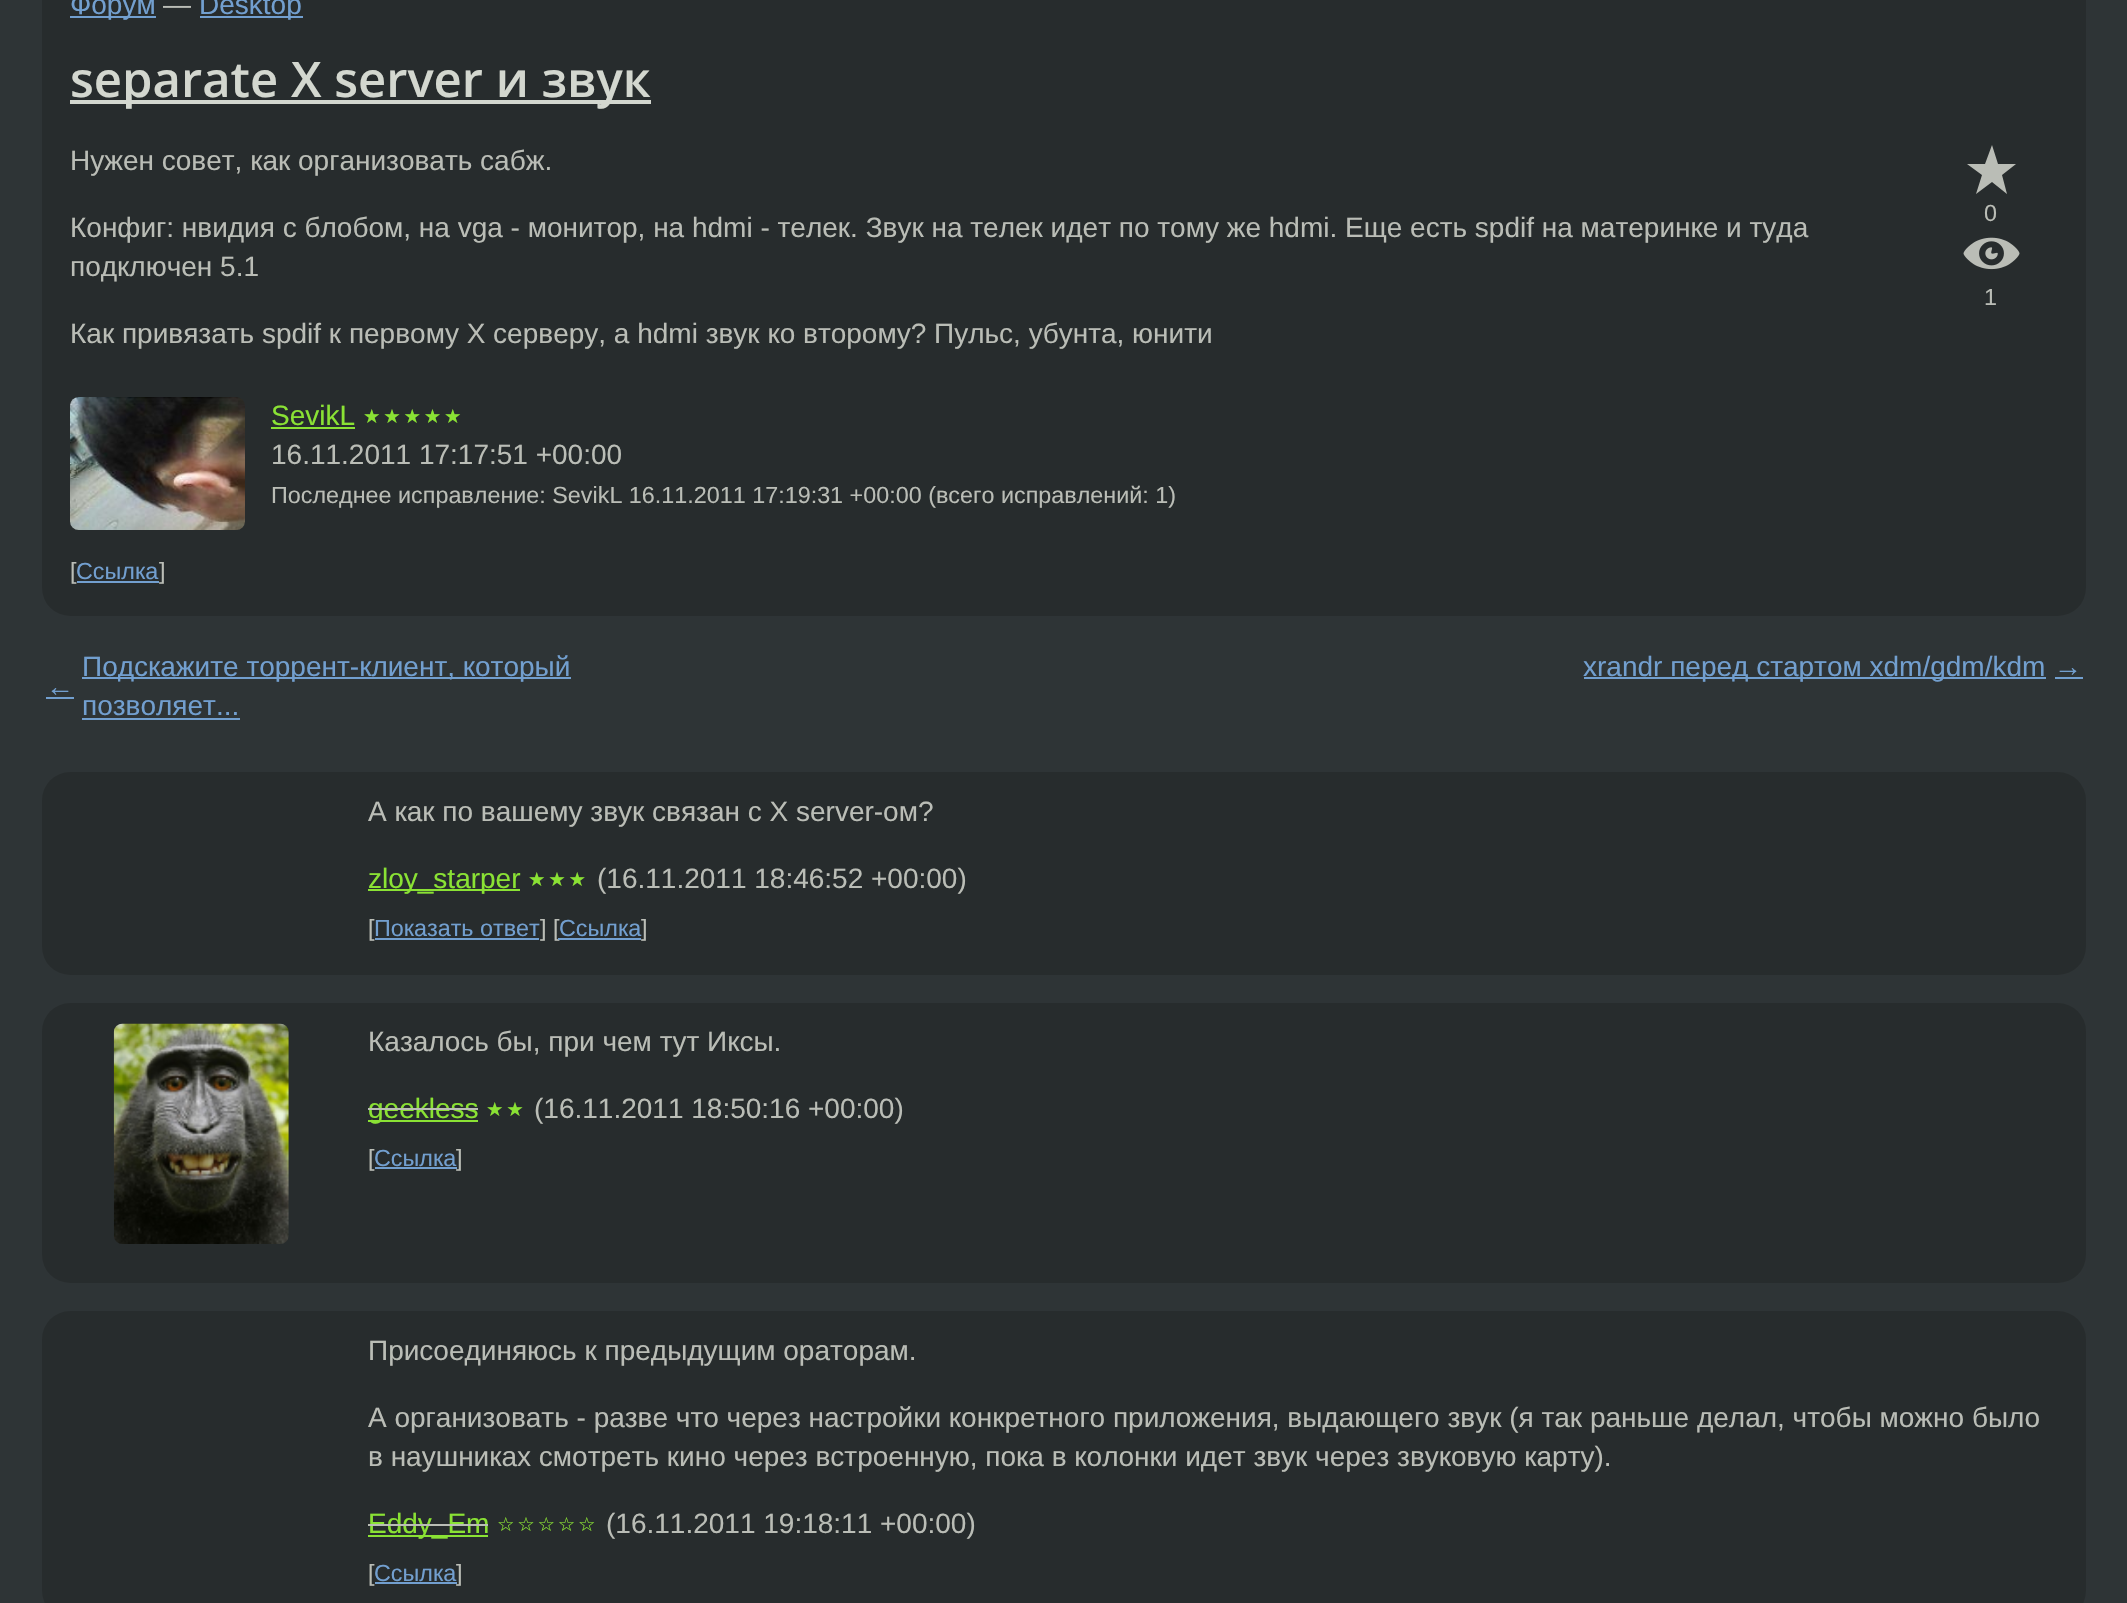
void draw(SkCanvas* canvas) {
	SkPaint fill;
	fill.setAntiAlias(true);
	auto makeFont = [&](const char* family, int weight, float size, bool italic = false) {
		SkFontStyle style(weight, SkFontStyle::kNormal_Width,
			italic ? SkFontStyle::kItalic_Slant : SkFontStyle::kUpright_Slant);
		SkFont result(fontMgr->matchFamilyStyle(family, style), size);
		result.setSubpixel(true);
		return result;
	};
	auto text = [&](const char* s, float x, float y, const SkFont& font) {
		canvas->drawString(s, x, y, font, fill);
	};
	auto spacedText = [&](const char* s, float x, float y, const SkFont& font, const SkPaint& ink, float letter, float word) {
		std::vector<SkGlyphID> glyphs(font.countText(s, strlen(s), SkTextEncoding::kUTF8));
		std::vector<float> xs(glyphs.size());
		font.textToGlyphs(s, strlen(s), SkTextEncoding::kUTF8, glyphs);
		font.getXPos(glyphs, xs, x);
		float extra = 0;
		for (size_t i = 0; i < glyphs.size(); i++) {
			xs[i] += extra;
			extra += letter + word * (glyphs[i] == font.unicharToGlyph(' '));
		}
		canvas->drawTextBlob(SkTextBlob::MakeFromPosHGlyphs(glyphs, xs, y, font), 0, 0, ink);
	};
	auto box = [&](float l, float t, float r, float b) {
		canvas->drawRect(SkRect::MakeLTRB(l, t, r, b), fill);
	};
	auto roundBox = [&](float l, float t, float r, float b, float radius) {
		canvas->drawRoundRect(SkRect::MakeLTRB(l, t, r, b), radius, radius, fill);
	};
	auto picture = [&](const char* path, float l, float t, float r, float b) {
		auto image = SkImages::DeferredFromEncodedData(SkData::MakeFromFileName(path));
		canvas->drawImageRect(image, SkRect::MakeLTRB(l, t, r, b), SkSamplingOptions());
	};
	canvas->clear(0xFF2E3436);
	fill.setColor(0xFF272C2D);
	roundBox(42, -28, 2086, 616, 28);
	fill.setColor(0xFF729FCF);
	box(70, 16, 156, 18);
	box(200, 16, 303, 18);
	fill.setColor(0xFFD3D7CF);
	box(70, 100, 651, 104);
	fill.setColor(0xFFBABDB6);
	canvas->drawPath(SkPathBuilder().moveTo(1992, 145).lineTo(1998, 164).lineTo(2016, 164).lineTo(2002, 175).lineTo(2007, 194).lineTo(1992, 182).lineTo(1976, 194).lineTo(1982, 175).lineTo(1967, 164).lineTo(1985, 164).close().detach(), fill);
	picture("image0.png", 1963, 237, 2020, 270);
	picture("image1.png", 70, 397, 245, 530);
	fill.setColor(0xFF8AE234);
	box(271, 427, 355, 429);
	fill.setColor(0xFF729FCF);
	box(77, 581, 159, 583);
	box(46, 697, 74, 699);
	box(82, 677, 571, 679);
	box(82, 718, 240, 720);
	box(1584, 677, 2046, 679);
	box(2055, 677, 2083, 679);
	fill.setColor(0xFF272C2D);
	roundBox(42, 772, 2086, 975, 28);
	fill.setColor(0xFF8AE234);
	box(368, 889, 520, 891);
	fill.setColor(0xFF729FCF);
	box(375, 938, 539, 940);
	fill.setColor(0xFF272C2D);
	roundBox(42, 1003, 2086, 1283, 28);
	picture("image2.png", 113, 1023, 289, 1244);
	fill.setColor(0xFF8AE234);
	box(368, 1120, 478, 1122);
	fill.setColor(0xFF729FCF);
	box(375, 1167, 457, 1169);
	fill.setColor(0xFF272C2D);
	roundBox(42, 1311, 2086, 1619, 28);
	fill.setColor(0xFF8AE234);
	box(368, 1535, 488, 1537);
	fill.setColor(0xFF729FCF);
	box(375, 1582, 457, 1584);
	auto font1 = makeFont("Liberation Sans", 400, 28);
	text("Форум", 70, 14, font1);
	fill.setColor(0xFFBABDB6);
	text("—", 163, 14, font1);
	fill.setColor(0xFF729FCF);
	text("Desktop", 199, 14, font1);
	auto font2 = makeFont("Open Sans", 600, 49);
	fill.setColor(0xFFD3D7CF);
	text("separate X server и звук", 70, 97, font2);
	fill.setColor(0xFFBABDB6);
	text("Нужен совет, как организовать сабж.", 70, 170, font1);
	text("Конфиг: нвидия с блобом, на vga - монитор, на hdmi - телек. Звук на телек идет по тому же hdmi. Еще есть spdif на материнке и туда", 70, 237, font1);
	text("подключен 5.1", 70, 276, font1);
	text("Как привязать spdif к первому Х серверу, а hdmi звук ко второму? Пульс, убунта, юнити", 70, 343, font1);
	auto font3 = makeFont("Liberation Sans", 400, 23.35f);
	text("0", 1984, 221, font3);
	text("1", 1984, 305, font3);
	fill.setColor(0xFF8AE234);
	text("SevikL", 271, 425, font1);
	auto font4 = makeFont("DejaVu Sans", 400, 19.5f);
	spacedText("★★★★★", 363, 423, font4, fill, 2.75f, 0);
	fill.setColor(0xFFBABDB6);
	text("16.11.2011 17:17:51 +00:00", 271, 464, font1);
	text("Последнее исправление: SevikL 16.11.2011 17:19:31 +00:00 (всего исправлений: 1)", 271, 503, font3);
	text("[", 70, 579, font3);
	fill.setColor(0xFF729FCF);
	text("Ссылка", 76, 579, font3);
	fill.setColor(0xFFBABDB6);
	text("]", 159, 579, font3);
	fill.setColor(0xFF729FCF);
	text("←", 46, 696, font1);
	text("Подскажите торрент-клиент, который", 82, 676, font1);
	text("позволяет...", 82, 715, font1);
	text("xrandr перед стартом xdm/gdm/kdm", 1583, 676, font1);
	text("→", 2054, 676, font1);
	fill.setColor(0xFFBABDB6);
	text("А как по вашему звук связан с X server-ом?", 368, 821, font1);
	fill.setColor(0xFF8AE234);
	text("zloy_starper", 368, 888, font1);
	spacedText("★★★", 528, 886, font4, fill, 2.75f, 0);
	fill.setColor(0xFFBABDB6);
	text("(16.11.2011 18:46:52 +00:00)", 597, 888, font1);
	text("[", 368, 936, font3);
	fill.setColor(0xFF729FCF);
	text("Показать ответ", 374, 936, font3);
	fill.setColor(0xFFBABDB6);
	text("] [", 540, 936, font3);
	fill.setColor(0xFF729FCF);
	box(558, 938, 641, 940);
	text("Ссылка", 559, 936, font3);
	fill.setColor(0xFFBABDB6);
	text("]", 641, 936, font3);
	text("Казалось бы, при чем тут Иксы.", 368, 1051, font1);
	fill.setColor(0xFF8AE234);
	text("geekless", 368, 1118, font1);
	fill.setColor(0xFFBABDB6);
	box(368, 1108, 478, 1110);
	fill.setColor(0xFF8AE234);
	spacedText("★★", 486, 1116, font4, fill, 2.75f, 0);
	fill.setColor(0xFFBABDB6);
	text("(16.11.2011 18:50:16 +00:00)", 534, 1118, font1);
	text("[", 368, 1166, font3);
	fill.setColor(0xFF729FCF);
	text("Ссылка", 374, 1166, font3);
	fill.setColor(0xFFBABDB6);
	text("]", 456, 1166, font3);
	text("Присоединяюсь к предыдущим ораторам.", 368, 1360, font1);
	text("А организовать - разве что через настройки конкретного приложения, выдающего звук (я так раньше делал, чтобы можно было", 368, 1427, font1);
	text("в наушниках смотреть кино через встроенную, пока в колонки идет звук через звуковую карту).", 368, 1466, font1);
	fill.setColor(0xFF8AE234);
	text("Eddy_Em", 368, 1533, font1);
	fill.setColor(0xFFBABDB6);
	box(368, 1524, 488, 1526);
	fill.setColor(0xFF8AE234);
	spacedText("☆☆☆☆☆", 497, 1531, font4, fill, 2.75f, 0);
	fill.setColor(0xFFBABDB6);
	text("(16.11.2011 19:18:11 +00:00)", 606, 1533, font1);
	text("[", 368, 1581, font3);
	fill.setColor(0xFF729FCF);
	text("Ссылка", 374, 1581, font3);
	fill.setColor(0xFFBABDB6);
	text("]", 456, 1581, font3);
}
